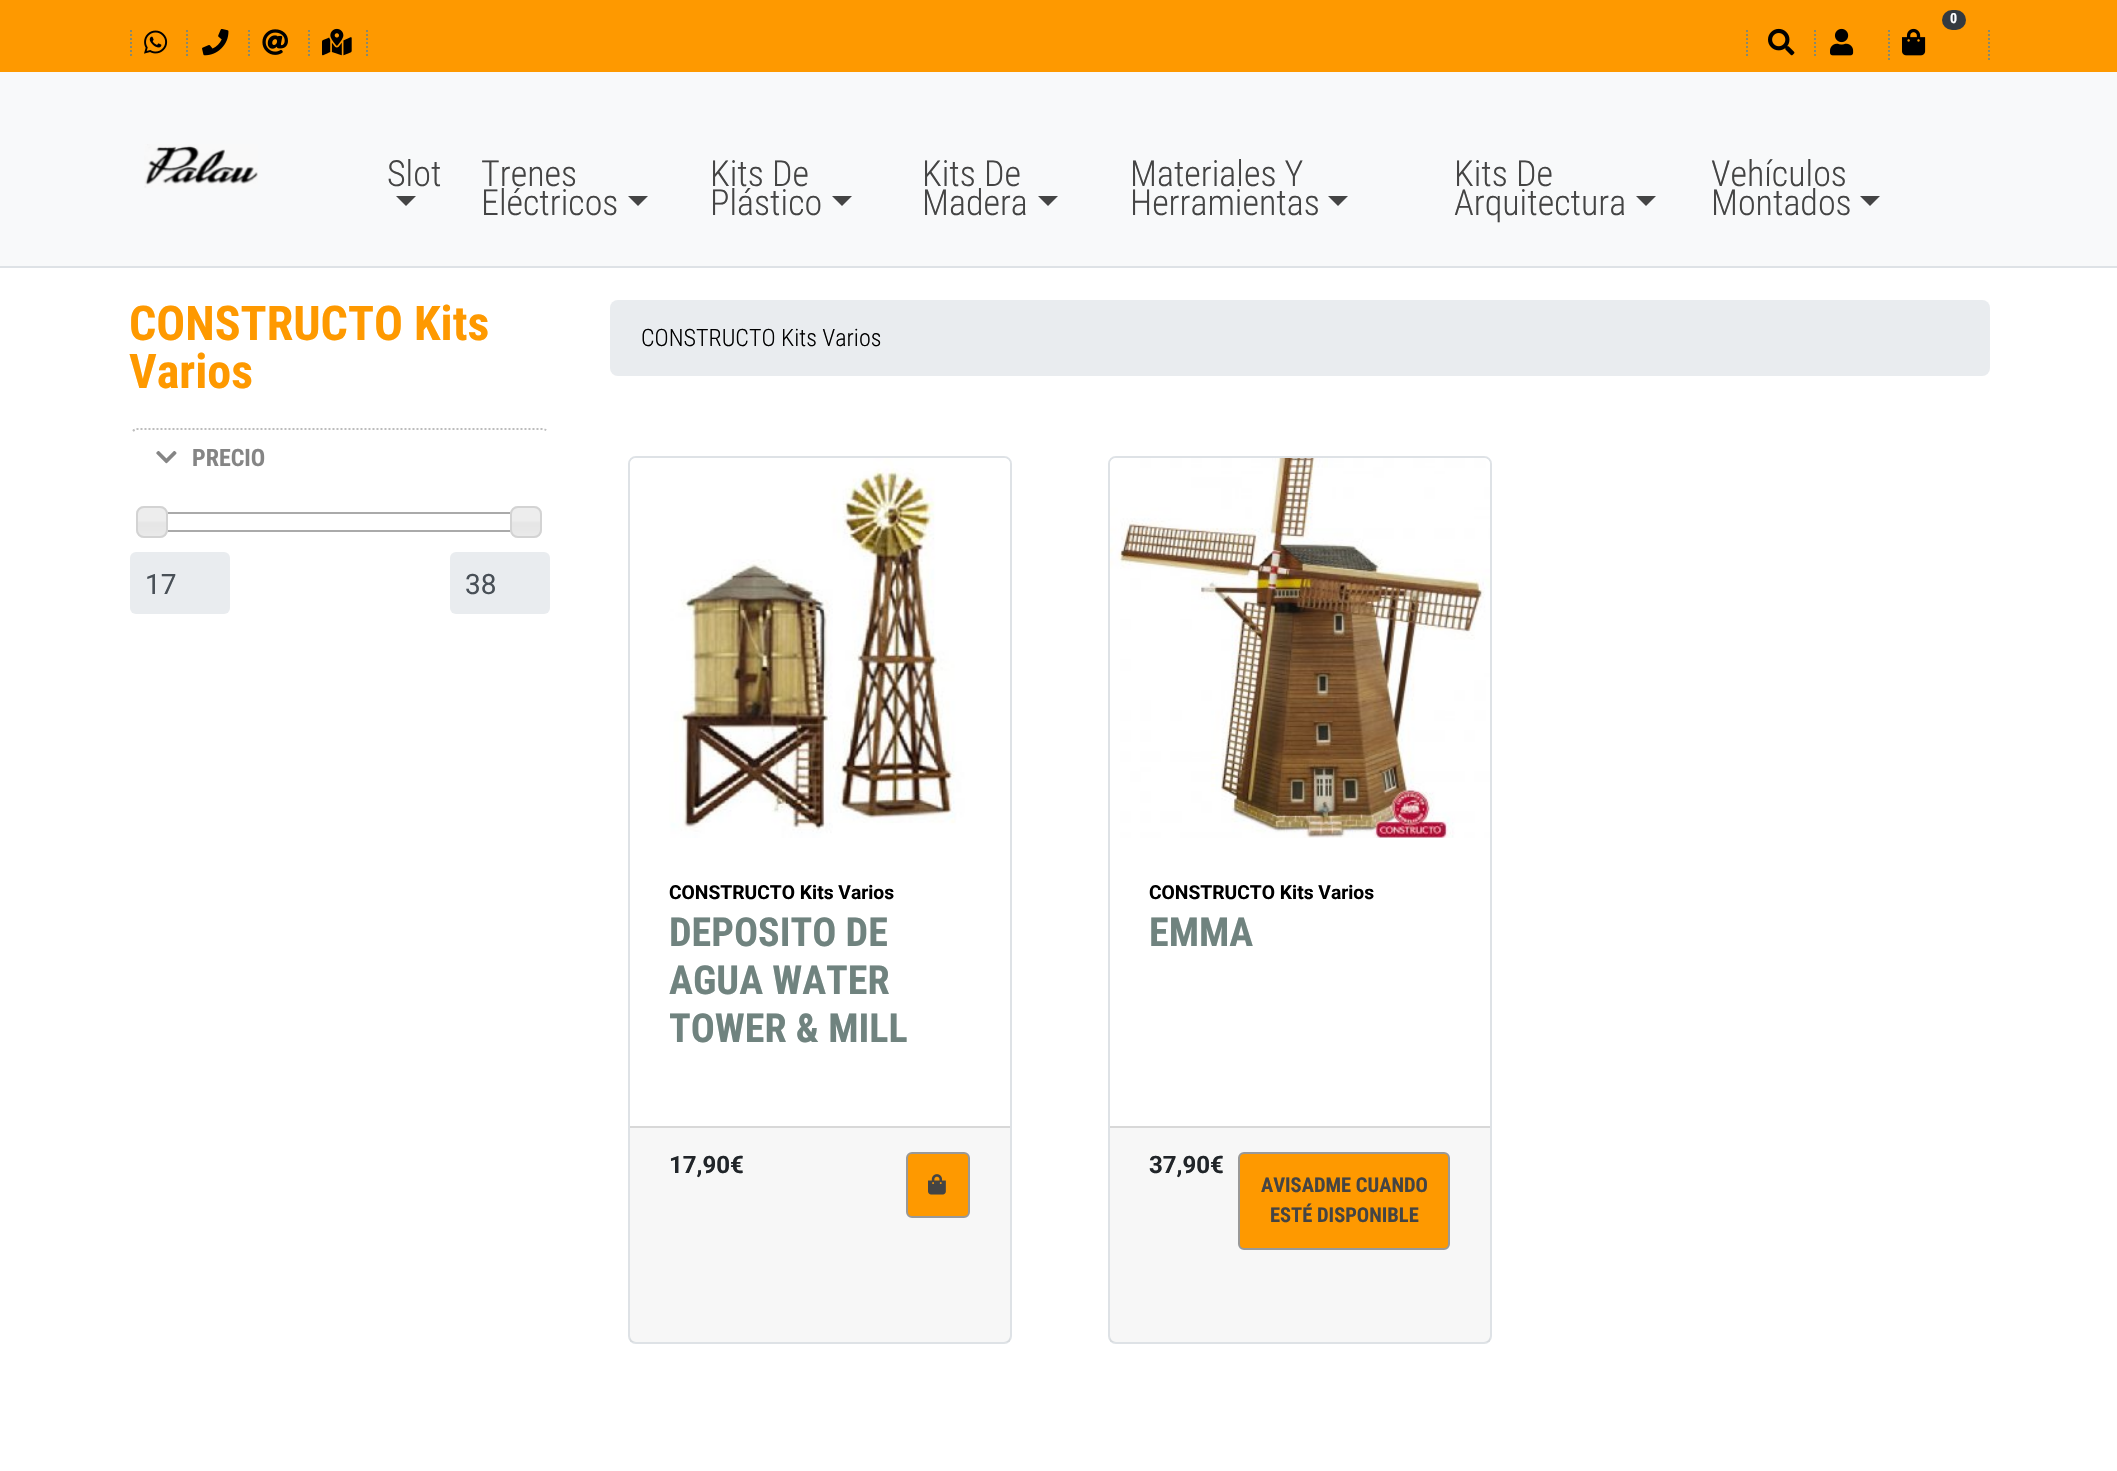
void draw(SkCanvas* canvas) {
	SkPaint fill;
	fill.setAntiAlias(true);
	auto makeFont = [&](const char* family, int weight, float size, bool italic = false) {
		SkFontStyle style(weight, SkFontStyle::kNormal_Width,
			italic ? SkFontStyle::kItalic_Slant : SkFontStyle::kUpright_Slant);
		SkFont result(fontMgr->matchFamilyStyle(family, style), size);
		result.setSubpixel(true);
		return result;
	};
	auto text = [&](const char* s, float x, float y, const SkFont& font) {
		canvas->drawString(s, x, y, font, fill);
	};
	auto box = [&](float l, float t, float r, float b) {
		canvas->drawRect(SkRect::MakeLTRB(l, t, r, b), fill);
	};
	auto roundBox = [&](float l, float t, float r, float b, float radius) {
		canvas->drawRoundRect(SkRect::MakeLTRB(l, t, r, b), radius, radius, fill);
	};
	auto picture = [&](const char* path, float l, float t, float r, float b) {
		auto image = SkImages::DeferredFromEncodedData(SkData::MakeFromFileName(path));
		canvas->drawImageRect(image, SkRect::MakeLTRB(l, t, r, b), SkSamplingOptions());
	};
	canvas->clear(0xFFFFFFFF);
	fill.setColor(0xFFFE9900);
	box(0, 0, 2117, 72);
	fill.setStyle(SkPaint::kStroke_Style);
	fill.setStrokeWidth(2);
	fill.setColor(0xFF868971);
	fill.setPathEffect(SkDashPathEffect::Make({{2, 2}}, 0));
	canvas->drawPath(SkPathBuilder().moveTo(1989, 30).lineTo(1989, 60).detach(), fill);
	fill.setPathEffect(nullptr);
	fill.setPathEffect(SkDashPathEffect::Make({{2, 2}}, 0));
	canvas->drawPath(SkPathBuilder().moveTo(1889, 30).lineTo(1889, 60).detach(), fill);
	fill.setPathEffect(nullptr);
	fill.setStyle(SkPaint::kFill_Style);
	fill.setColor(0xFF343A40);
	roundBox(1942, 10, 1966, 30, 10);
	picture("image0.png", 1902, 28, 1926, 56);
	fill.setStyle(SkPaint::kStroke_Style);
	fill.setColor(0xFF868971);
	fill.setPathEffect(SkDashPathEffect::Make({{2, 2}}, 0));
	canvas->drawPath(SkPathBuilder().moveTo(1747, 30).lineTo(1747, 58).detach(), fill);
	fill.setPathEffect(nullptr);
	picture("image1.png", 1768, 28, 1795, 56);
	fill.setPathEffect(SkDashPathEffect::Make({{2, 2}}, 0));
	canvas->drawPath(SkPathBuilder().moveTo(1815, 30).lineTo(1815, 58).detach(), fill);
	fill.setPathEffect(nullptr);
	picture("image2.png", 1830, 28, 1854, 56);
	fill.setPathEffect(SkDashPathEffect::Make({{2, 2}}, 0));
	canvas->drawPath(SkPathBuilder().moveTo(131, 30).lineTo(131, 58).detach(), fill);
	fill.setPathEffect(nullptr);
	picture("image3.png", 144, 30, 168, 54);
	fill.setPathEffect(SkDashPathEffect::Make({{2, 2}}, 0));
	canvas->drawPath(SkPathBuilder().moveTo(187, 30).lineTo(187, 58).detach(), fill);
	fill.setPathEffect(nullptr);
	picture("image4.png", 202, 29, 229, 56);
	fill.setPathEffect(SkDashPathEffect::Make({{2, 2}}, 0));
	canvas->drawPath(SkPathBuilder().moveTo(249, 30).lineTo(249, 58).detach(), fill);
	fill.setPathEffect(nullptr);
	picture("image5.png", 262, 29, 288, 55);
	fill.setPathEffect(SkDashPathEffect::Make({{2, 2}}, 0));
	canvas->drawPath(SkPathBuilder().moveTo(367, 30).lineTo(367, 58).moveTo(309, 30).lineTo(309, 58).detach(), fill);
	fill.setPathEffect(nullptr);
	picture("image6.png", 322, 28, 352, 56);
	fill.setStyle(SkPaint::kFill_Style);
	fill.setColor(0xFFF8F9FA);
	box(0, 72, 2117, 266);
	fill.setColor(0xFFDEE2E6);
	box(0, 266, 2117, 268);
	picture("image7.png", 144, 144, 258, 188);
	fill.setColor(0xFF444444);
	canvas->drawPath(SkPathBuilder().moveTo(396, 196).lineTo(416, 196).lineTo(406, 206).close().detach(), fill);
	canvas->drawPath(SkPathBuilder().moveTo(628, 196).lineTo(648, 196).lineTo(638, 206).close().detach(), fill);
	canvas->drawPath(SkPathBuilder().moveTo(832, 196).lineTo(852, 196).lineTo(842, 206).close().detach(), fill);
	canvas->drawPath(SkPathBuilder().moveTo(1038, 196).lineTo(1058, 196).lineTo(1048, 206).close().detach(), fill);
	canvas->drawPath(SkPathBuilder().moveTo(1328, 196).lineTo(1348, 196).lineTo(1338, 206).close().detach(), fill);
	canvas->drawPath(SkPathBuilder().moveTo(1636, 196).lineTo(1656, 196).lineTo(1646, 206).close().detach(), fill);
	canvas->drawPath(SkPathBuilder().moveTo(1860, 196).lineTo(1880, 196).lineTo(1870, 206).close().detach(), fill);
	fill.setStyle(SkPaint::kStroke_Style);
	fill.setColor(0xFFBDBDBD);
	fill.setPathEffect(SkDashPathEffect::Make({{2, 2}}, 0));
	canvas->drawPath(SkPathBuilder().moveTo(133, 431).cubicTo(134.5f, 429.5f, 136, 429, 138, 429).lineTo(542, 429).cubicTo(544, 429, 545.5f, 429.5f, 547, 431).detach(), fill);
	fill.setPathEffect(nullptr);
	picture("image8.png", 156, 451, 177, 464);
	fill.setColor(0xFFAAAAAA);
	canvas->drawRect(SkRect::MakeLTRB(151, 513, 527, 531), fill);
	picture("image9.png", 136, 506, 168, 538);
	fill.setColor(0xFFD3D3D3);
	canvas->drawRoundRect(SkRect::MakeLTRB(137, 507, 167, 537), 7, 7, fill);
	picture("image10.png", 510, 506, 542, 538);
	canvas->drawRoundRect(SkRect::MakeLTRB(511, 507, 541, 537), 7, 7, fill);
	fill.setStyle(SkPaint::kFill_Style);
	fill.setColor(0xFFE9ECEF);
	roundBox(130, 552, 230, 614, 6);
	roundBox(450, 552, 550, 614, 6);
	roundBox(610, 300, 1990, 376, 8);
	fill.setStyle(SkPaint::kStroke_Style);
	fill.setColor(0xFFDEE2E6);
	canvas->drawRoundRect(SkRect::MakeLTRB(629, 457, 1011, 1343), 7, 7, fill);
	picture("image11.png", 630, 458, 1010, 838);
	fill.setStyle(SkPaint::kFill_Style);
	fill.setColor(0x08000000);
	box(630, 1128, 1010, 1342);
	fill.setColor(0xFFD8D8D8);
	box(630, 1126, 1010, 1128);
	fill.setColor(0xFFFE9900);
	canvas->drawRoundRect(SkRect::MakeLTRB(907, 1153, 969, 1217), 5, 5, fill);
	fill.setStyle(SkPaint::kStroke_Style);
	fill.setColor(0xFF999999);
	canvas->drawRoundRect(SkRect::MakeLTRB(907, 1153, 969, 1217), 5, 5, fill);
	picture("image12.png", 928, 1174, 946, 1195);
	fill.setColor(0xFFDEE2E6);
	canvas->drawRoundRect(SkRect::MakeLTRB(1109, 457, 1491, 1343), 7, 7, fill);
	picture("image13.png", 1110, 458, 1490, 838);
	fill.setStyle(SkPaint::kFill_Style);
	fill.setColor(0x08000000);
	box(1110, 1128, 1490, 1342);
	fill.setColor(0xFFD8D8D8);
	box(1110, 1126, 1490, 1128);
	fill.setColor(0xFFFE9900);
	canvas->drawRoundRect(SkRect::MakeLTRB(1239, 1153, 1449, 1249), 5, 5, fill);
	fill.setStyle(SkPaint::kStroke_Style);
	fill.setColor(0xFF999999);
	canvas->drawRoundRect(SkRect::MakeLTRB(1239, 1153, 1449, 1249), 5, 5, fill);
	auto font1 = makeFont("Roboto Condensed", 700, 14);
	fill.setStyle(SkPaint::kFill_Style);
	fill.setColor(0xFFFFFFFF);
	text("0", 1950, 23, font1);
	auto font2 = makeFont("Roboto Condensed", 300, 36);
	fill.setColor(0xFF444444);
	text("Slot", 387, 186, font2);
	text("Trenes", 481, 186, font2);
	text("Eléctricos", 481, 215, font2);
	text("Kits De", 710, 186, font2);
	text("Plástico", 710, 215, font2);
	text("Kits De", 922, 186, font2);
	text("Madera", 922, 215, font2);
	text("Materiales Y", 1130, 186, font2);
	text("Herramientas", 1130, 215, font2);
	text("Kits De", 1454, 186, font2);
	text("Arquitectura", 1454, 215, font2);
	text("Vehículos", 1711, 186, font2);
	text("Montados", 1711, 215, font2);
	auto font3 = makeFont("Roboto Condensed", 700, 48);
	fill.setColor(0xFFFE9900);
	text("CONSTRUCTO Kits", 129, 340, font3);
	text("Varios", 129, 388, font3);
	auto font4 = makeFont("Roboto Condensed", 700, 24);
	fill.setColor(0xFF858585);
	text("PRECIO", 192, 466, font4);
	auto font5 = makeFont("Roboto", 400, 28);
	fill.setColor(0xFF495057);
	text("17", 145, 594, font5);
	text("38", 465, 594, font5);
	auto font6 = makeFont("Roboto Condensed", 300, 24);
	fill.setColor(0xFF000000);
	text("CONSTRUCTO Kits Varios", 641, 346, font6);
	auto font7 = makeFont("Roboto", 700, 19.25f);
	text("CONSTRUCTO Kits Varios", 669, 899, font7);
	auto font8 = makeFont("Roboto Condensed", 700, 40);
	fill.setColor(0xFF70837F);
	text("DEPOSITO DE", 669, 946, font8);
	text("AGUA WATER", 669, 994, font8);
	text("TOWER & MILL", 669, 1042, font8);
	auto font9 = makeFont("Roboto", 700, 24);
	fill.setColor(0xFF212529);
	text("17,90€", 669, 1173, font9);
	fill.setColor(0xFF000000);
	text("CONSTRUCTO Kits Varios", 1149, 899, font7);
	fill.setColor(0xFF70837F);
	text("EMMA", 1149, 946, font8);
	fill.setColor(0xFF212529);
	text("37,90€", 1149, 1173, font9);
	auto font10 = makeFont("Roboto Condensed", 700, 20.5f);
	fill.setColor(0xFF444444);
	text("AVISADME CUANDO", 1261, 1192, font10);
	text("ESTÉ DISPONIBLE", 1270, 1222, font10);
}
